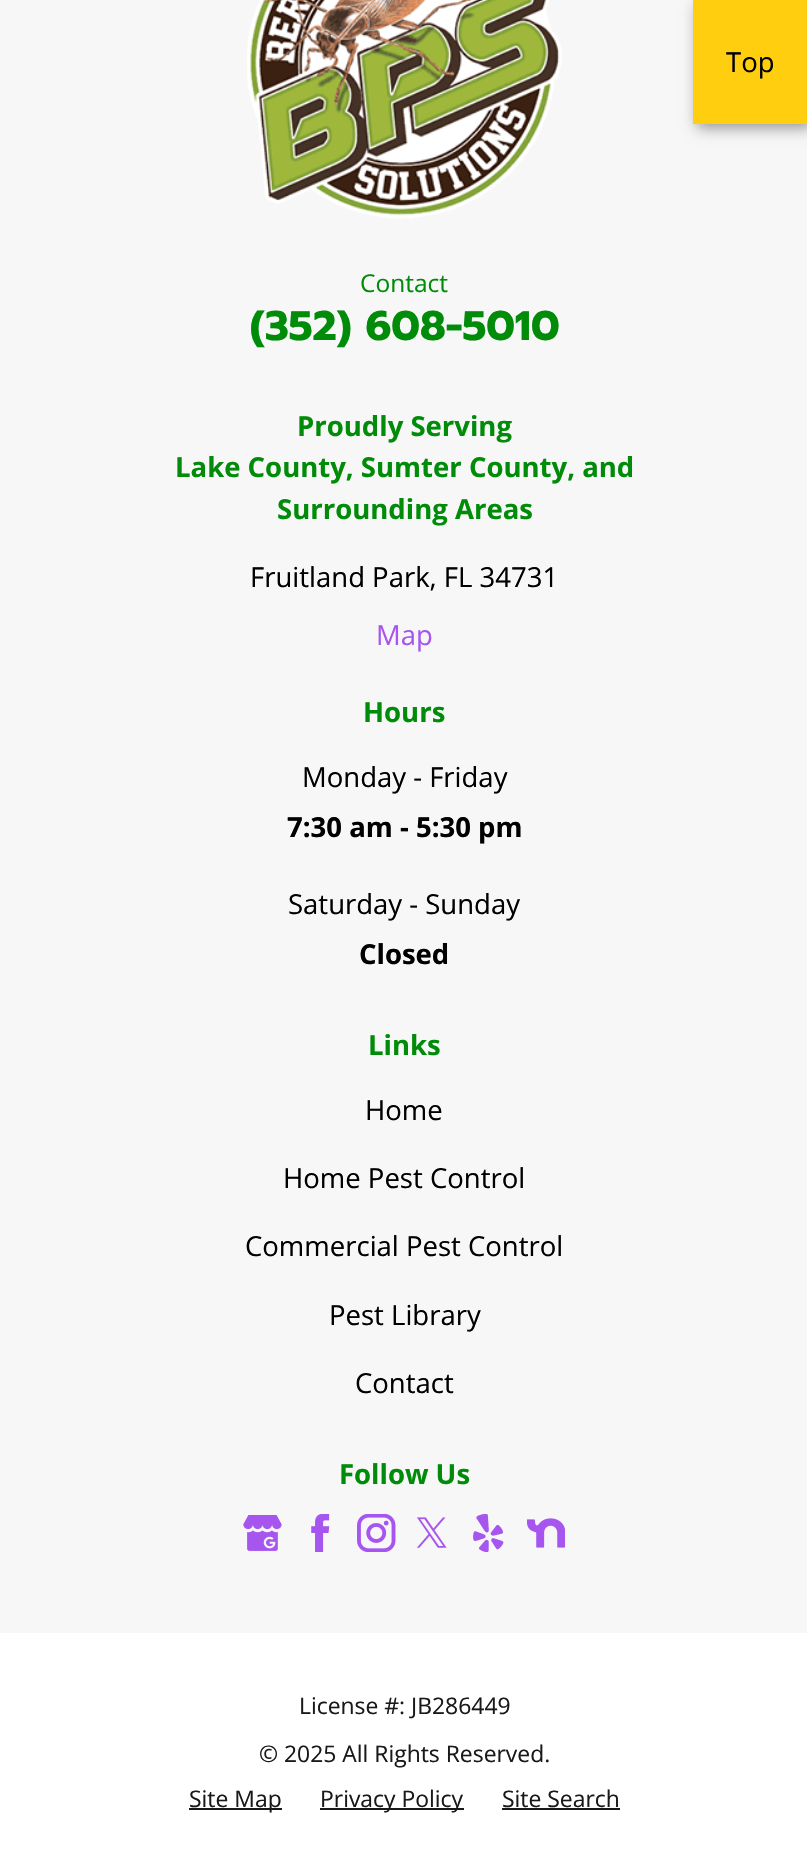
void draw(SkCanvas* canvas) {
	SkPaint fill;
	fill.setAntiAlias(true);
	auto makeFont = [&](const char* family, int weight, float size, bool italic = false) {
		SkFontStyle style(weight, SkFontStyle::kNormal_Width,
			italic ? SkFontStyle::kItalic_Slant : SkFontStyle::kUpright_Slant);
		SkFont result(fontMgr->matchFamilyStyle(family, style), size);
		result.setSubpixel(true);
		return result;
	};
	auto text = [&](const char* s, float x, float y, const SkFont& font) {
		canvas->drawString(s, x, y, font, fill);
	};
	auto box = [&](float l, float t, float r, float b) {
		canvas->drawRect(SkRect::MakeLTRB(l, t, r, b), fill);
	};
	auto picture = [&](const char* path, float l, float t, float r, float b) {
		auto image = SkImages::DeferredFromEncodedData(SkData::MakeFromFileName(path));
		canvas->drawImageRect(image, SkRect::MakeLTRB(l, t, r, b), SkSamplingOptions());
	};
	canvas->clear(0xFFFFFFFF);
	fill.setColor(0xFFF7F7F7);
	box(0, 0, 807, 1633);
	fill.setColor(0x66000000);
	fill.setMaskFilter(SkMaskFilter::MakeBlur(kNormal_SkBlurStyle, 7));
	canvas->drawRect(SkRect::MakeLTRB(697, 4, 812, 128), fill);
	fill.setMaskFilter(nullptr);
	fill.setColor(0xFFFECE0F);
	box(693, 0, 807, 124);
	picture("image0.png", 247, 0, 562, 219);
	picture("image1.png", 243, 1515, 282, 1551);
	picture("image2.png", 311, 1514, 330, 1552);
	picture("image3.png", 357, 1514, 396, 1552);
	picture("image4.png", 417, 1517, 447, 1548);
	picture("image5.png", 473, 1514, 504, 1552);
	picture("image6.png", 527, 1518, 565, 1548);
	fill.setColor(0xFF191919);
	box(189, 1808, 282, 1810);
	box(320, 1808, 464, 1810);
	box(502, 1808, 620, 1810);
	auto font1 = makeFont("Open Sans", 400, 27.5f);
	fill.setColor(0xFF000000);
	text("Top", 726, 72, font1);
	auto font2 = makeFont("Open Sans", 400, 24.5f);
	fill.setColor(0xFF008C09);
	text("Contact", 360, 292, font2);
	auto font3 = makeFont("Prompt", 700, 41.25f);
	text("(352) 608-5010", 250, 340, font3);
	auto font4 = makeFont("Open Sans", 700, 27.5f);
	text("Proudly Serving", 297, 436, font4);
	text("Lake County, Sumter County, and", 175, 477, font4);
	text("Surrounding Areas", 277, 519, font4);
	fill.setColor(0xFF000000);
	text("Fruitland Park, FL 34731", 250, 587, font1);
	fill.setColor(0xFFA656EE);
	text("Map", 376, 645, font1);
	fill.setColor(0xFF008C09);
	text("Hours", 363, 722, font4);
	fill.setColor(0xFF000000);
	text("Monday - Friday", 302, 787, font1);
	text("7:30 am - 5:30 pm", 287, 837, font4);
	text("Saturday - Sunday", 288, 914, font1);
	text("Closed", 359, 964, font4);
	fill.setColor(0xFF008C09);
	text("Links", 368, 1055, font4);
	fill.setColor(0xFF000000);
	text("Home", 365, 1120, font1);
	text("Home Pest Control", 283, 1188, font1);
	text("Commercial Pest Control", 245, 1256, font1);
	text("Pest Library", 329, 1325, font1);
	text("Contact", 355, 1393, font1);
	fill.setColor(0xFF008C09);
	text("Follow Us", 339, 1484, font4);
	auto font5 = makeFont("Open Sans", 400, 22.9f);
	fill.setColor(0xFF191919);
	text("License #: JB286449", 299, 1714, font5);
	text("© 2025 All Rights Reserved.", 259, 1762, font5);
	text("Site Map", 189, 1807, font5);
	text("Privacy Policy", 320, 1807, font5);
	text("Site Search", 502, 1807, font5);
}
